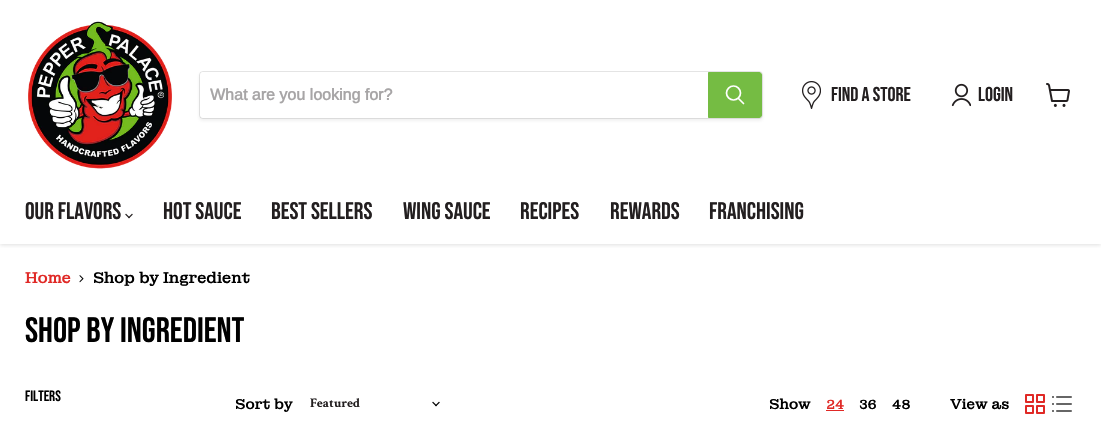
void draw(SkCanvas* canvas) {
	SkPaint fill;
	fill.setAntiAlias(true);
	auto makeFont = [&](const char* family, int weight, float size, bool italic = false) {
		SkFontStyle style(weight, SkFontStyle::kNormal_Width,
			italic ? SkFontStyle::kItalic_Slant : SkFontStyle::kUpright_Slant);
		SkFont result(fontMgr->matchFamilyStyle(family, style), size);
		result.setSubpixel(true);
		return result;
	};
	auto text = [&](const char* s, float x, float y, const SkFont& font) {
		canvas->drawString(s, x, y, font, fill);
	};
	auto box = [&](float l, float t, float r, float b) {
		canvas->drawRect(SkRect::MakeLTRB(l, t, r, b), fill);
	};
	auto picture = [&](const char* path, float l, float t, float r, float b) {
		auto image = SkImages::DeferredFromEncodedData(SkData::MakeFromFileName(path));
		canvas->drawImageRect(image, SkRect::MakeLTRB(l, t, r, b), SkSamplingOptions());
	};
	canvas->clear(0xFFFFFFFF);
	canvas->save();
	canvas->clipRect(SkRect::MakeLTRB(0, 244, 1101, 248));
	fill.setColor(0x40808080);
	fill.setMaskFilter(SkMaskFilter::MakeBlur(kNormal_SkBlurStyle, 2));
	canvas->drawRect(SkRect::MakeLTRB(0, 1, 1101, 245), fill);
	fill.setMaskFilter(nullptr);
	canvas->restore();
	picture("image0.png", 28, 21, 172, 169);
	fill.setColor(0x1C808080);
	fill.setMaskFilter(SkMaskFilter::MakeBlur(kNormal_SkBlurStyle, 1.5f));
	canvas->drawRoundRect(SkRect::MakeLTRB(199, 73, 763, 121), 4, 4, fill);
	fill.setMaskFilter(nullptr);
	fill.setStyle(SkPaint::kStroke_Style);
	fill.setStrokeWidth(1);
	fill.setColor(0x33808080);
	canvas->drawRoundRect(SkRect::MakeLTRB(199.5f, 71.5f, 762.5f, 118.5f), 3.5f, 3.5f, fill);
	fill.setStyle(SkPaint::kFill_Style);
	fill.setColor(0xFFFFFFFF);
	canvas->drawPath(SkPathBuilder().moveTo(203, 72).lineTo(708, 72).lineTo(708, 118).lineTo(203, 118).cubicTo(201.5f, 118, 200, 116.5f, 200, 115).lineTo(200, 75).cubicTo(200, 73.5f, 201.5f, 72, 203, 72).close().detach(), fill);
	fill.setColor(0xFF75BC43);
	canvas->drawPath(SkPathBuilder().moveTo(708.5f, 72.5f).lineTo(759, 72.5f).cubicTo(760.5f, 72.5f, 761.5f, 73.5f, 761.5f, 75).lineTo(761.5f, 115).cubicTo(761.5f, 116.5f, 760.5f, 117.5f, 759, 117.5f).lineTo(708.5f, 117.5f).close().detach(), fill);
	fill.setStyle(SkPaint::kStroke_Style);
	canvas->drawPath(SkPathBuilder().moveTo(708.5f, 72.5f).lineTo(759, 72.5f).cubicTo(760.5f, 72.5f, 761.5f, 73.5f, 761.5f, 75).lineTo(761.5f, 115).cubicTo(761.5f, 116.5f, 760.5f, 117.5f, 759, 117.5f).lineTo(708.5f, 117.5f).close().detach(), fill);
	fill.setStrokeWidth(1.7f);
	fill.setStrokeCap(SkPaint::kRound_Cap);
	fill.setColor(0xFFFFFFFF);
	canvas->drawPath(SkPathBuilder().moveTo(743.5f, 103.5f).lineTo(738.5f, 98.5f).detach(), fill);
	fill.setStrokeCap(SkPaint::kButt_Cap);
	canvas->drawCircle(733.5f, 93, 7, fill);
	picture("image1.png", 802, 81, 821, 109);
	picture("image2.png", 951, 83, 971, 107);
	picture("image3.png", 1046, 83, 1070, 107);
	picture("image4.png", 125, 213, 133, 219);
	picture("image5.png", 79, 275, 84, 283);
	picture("image6.png", 432, 401, 440, 407);
	fill.setStyle(SkPaint::kFill_Style);
	fill.setColor(0xFFE02926);
	box(826, 410, 844, 411);
	picture("image7.png", 1025, 394, 1045, 414);
	picture("image8.png", 1052, 396, 1072, 412);
	auto font1 = makeFont("Arimo", 700, 16);
	fill.setColor(0xFFA7A5A6);
	text("What are you looking for?", 210, 100, font1);
	auto font2 = makeFont("Bebas Neue", 400, 20);
	fill.setColor(0xFF231F20);
	text("Find a Store", 831, 101, font2);
	text("LOGIN", 978, 101, font2);
	auto font3 = makeFont("Bebas Neue", 400, 24);
	text("OUR FLAVORS", 25, 219, font3);
	text("HOT SAUCE", 163, 219, font3);
	text("BEST SELLERS", 271, 219, font3);
	text("WING SAUCE", 403, 219, font3);
	text("RECIPES", 520, 219, font3);
	text("REWARDS", 610, 219, font3);
	text("FRANCHISING", 709, 219, font3);
	auto font4 = makeFont("Montagu Slab", 700, 15);
	fill.setColor(0xFFE02926);
	text("Home", 25, 283, font4);
	fill.setColor(0xFF000000);
	text("Shop by Ingredient", 93, 283, font4);
	auto font5 = makeFont("Bebas Neue", 400, 35.25f);
	text("SHOP BY INGREDIENT", 25, 342, font5);
	auto font6 = makeFont("Bebas Neue", 400, 15);
	text("FILTERS", 25, 401, font6);
	auto font7 = makeFont("Montagu Slab", 700, 14);
	text("Sort by", 235, 409, font7);
	auto font8 = makeFont("Crimson Text", 700, 13);
	fill.setColor(0xFF231F20);
	text("Featured", 310, 407, font8);
	fill.setColor(0xFF000000);
	text("Show", 769, 409, font7);
	auto font9 = makeFont("Montagu Slab", 700, 13);
	fill.setColor(0xFFE02926);
	text("24", 826, 409, font9);
	fill.setColor(0xFF000000);
	text("36", 859, 409, font9);
	text("48", 892, 409, font9);
	text("View as", 950, 409, font7);
}
